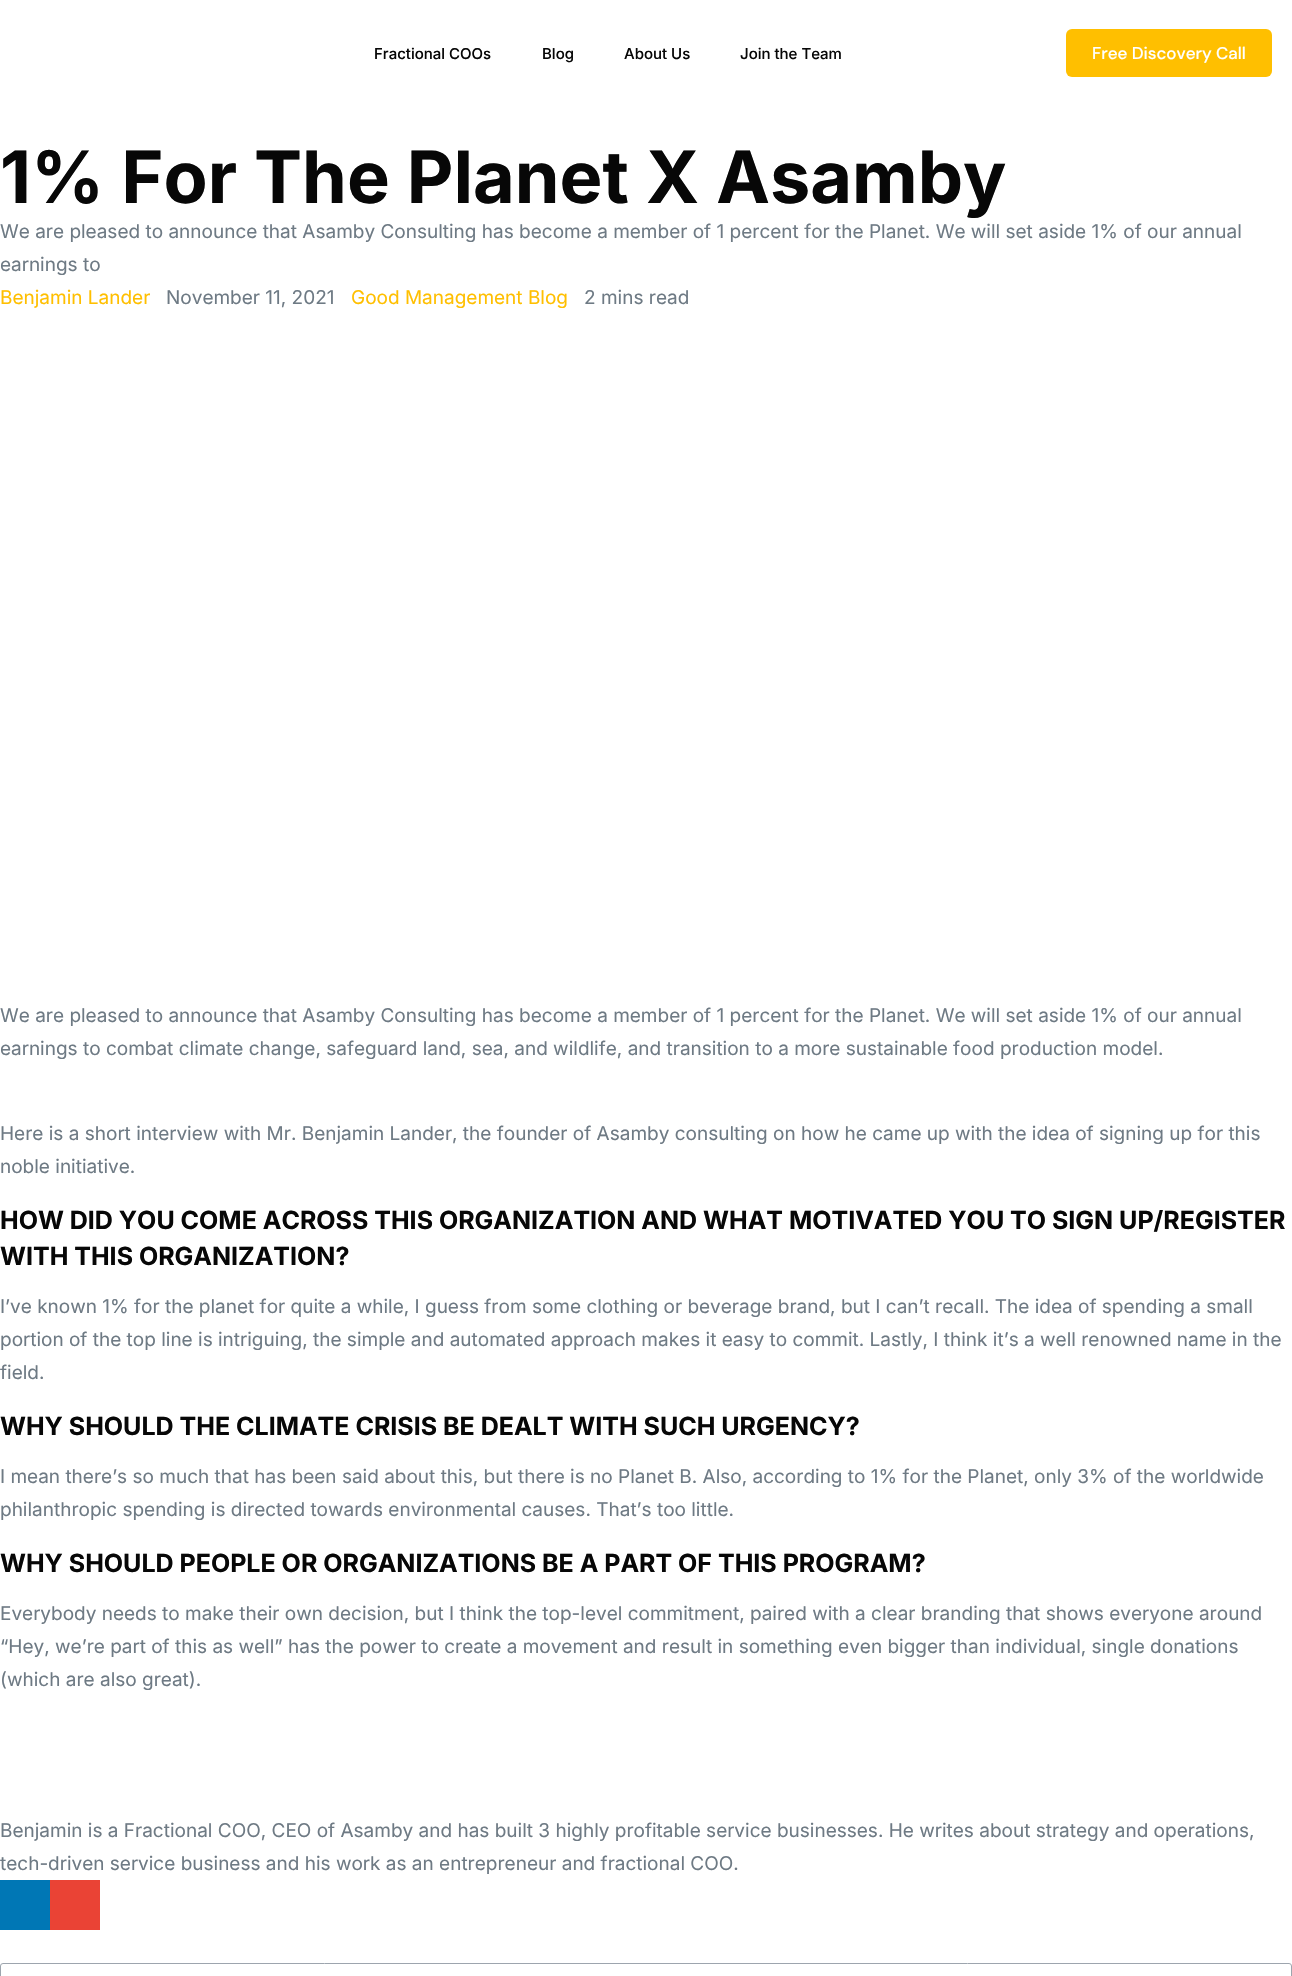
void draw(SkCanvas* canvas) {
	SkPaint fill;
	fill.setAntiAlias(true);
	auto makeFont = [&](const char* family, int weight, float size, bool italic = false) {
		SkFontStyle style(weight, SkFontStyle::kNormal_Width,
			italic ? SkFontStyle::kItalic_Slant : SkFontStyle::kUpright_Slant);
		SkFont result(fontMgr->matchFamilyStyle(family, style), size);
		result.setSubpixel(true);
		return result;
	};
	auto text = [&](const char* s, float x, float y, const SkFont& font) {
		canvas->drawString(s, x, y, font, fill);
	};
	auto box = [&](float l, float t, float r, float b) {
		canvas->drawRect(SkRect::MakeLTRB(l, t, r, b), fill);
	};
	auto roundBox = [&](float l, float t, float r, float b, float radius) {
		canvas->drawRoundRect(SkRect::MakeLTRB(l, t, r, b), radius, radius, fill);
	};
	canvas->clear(0xFFFFFFFF);
	fill.setColor(0xFFFFBF00);
	roundBox(1066, 29, 1272, 77, 6);
	fill.setColor(0xFF0077B5);
	box(0, 1880, 50, 1930);
	fill.setColor(0xFFEA4335);
	box(50, 1880, 100, 1930);
	fill.setStyle(SkPaint::kStroke_Style);
	fill.setStrokeWidth(1);
	fill.setColor(0xFF9DA5AE);
	canvas->drawRoundRect(SkRect::MakeLTRB(0.5f, 1963.5f, 1291.5f, 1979.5f), 2.5f, 2.5f, fill);
	auto font1 = makeFont("Inter", 500, 15);
	fill.setStyle(SkPaint::kFill_Style);
	fill.setColor(0xFF070707);
	text("Fractional COOs", 374, 59, font1);
	text("Blog", 542, 59, font1);
	text("About Us", 624, 59, font1);
	text("Join the Team", 740, 59, font1);
	auto font2 = makeFont("DM Sans", 500, 17);
	fill.setColor(0xFFFFFFFF);
	text("Free Discovery Call", 1092, 59, font2);
	auto font3 = makeFont("Inter", 700, 72);
	fill.setColor(0xFF070707);
	text("1% For The Planet X Asamby", 0, 203, font3);
	auto font4 = makeFont("Inter", 400, 19);
	fill.setColor(0xFF6E7A84);
	text("We are pleased to announce that Asamby Consulting has become a member of 1 percent for the Planet. We will set aside 1% of our annual", 0, 238, font4);
	text("earnings to", 0, 271, font4);
	fill.setColor(0xFFFFBF00);
	text("Benjamin Lander", 0, 304, font4);
	fill.setColor(0xFF6E7A84);
	text("November 11, 2021", 166, 304, font4);
	fill.setColor(0xFFFFBF00);
	text("Good Management Blog", 351, 304, font4);
	fill.setColor(0xFF6E7A84);
	text("2 mins read", 584, 304, font4);
	text("We are pleased to announce that Asamby Consulting has become a member of 1 percent for the Planet. We will set aside 1% of our annual", 0, 1022, font4);
	text("earnings to combat climate change, safeguard land, sea, and wildlife, and transition to a more sustainable food production model.", 0, 1055, font4);
	text("Here is a short interview with Mr. Benjamin Lander, the founder of Asamby consulting on how he came up with the idea of signing up for this", 0, 1140, font4);
	text("noble initiative.", 0, 1173, font4);
	auto font5 = makeFont("Inter", 700, 25);
	fill.setColor(0xFF070707);
	text("HOW DID YOU COME ACROSS THIS ORGANIZATION AND WHAT MOTIVATED YOU TO SIGN UP/REGISTER", 0, 1229, font5);
	text("WITH THIS ORGANIZATION?", 0, 1265, font5);
	fill.setColor(0xFF6E7A84);
	text("I’ve known 1% for the planet for quite a while, I guess from some clothing or beverage brand, but I can’t recall. The idea of spending a small", 0, 1313, font4);
	text("portion of the top line is intriguing, the simple and automated approach makes it easy to commit. Lastly, I think it’s a well renowned name in the", 0, 1346, font4);
	text("field.", 0, 1379, font4);
	fill.setColor(0xFF070707);
	text("WHY SHOULD THE CLIMATE CRISIS BE DEALT WITH SUCH URGENCY?", 0, 1435, font5);
	fill.setColor(0xFF6E7A84);
	text("I mean there’s so much that has been said about this, but there is no Planet B. Also, according to 1% for the Planet, only 3% of the worldwide", 0, 1483, font4);
	text("philanthropic spending is directed towards environmental causes. That’s too little.", 0, 1516, font4);
	fill.setColor(0xFF070707);
	text("WHY SHOULD PEOPLE OR ORGANIZATIONS BE A PART OF THIS PROGRAM?", 0, 1572, font5);
	fill.setColor(0xFF6E7A84);
	text("Everybody needs to make their own decision, but I think the top-level commitment, paired with a clear branding that shows everyone around", 0, 1620, font4);
	text("“Hey, we’re part of this as well” has the power to create a movement and result in something even bigger than individual, single donations", 0, 1653, font4);
	text("(which are also great).", 0, 1686, font4);
	text("Benjamin is a Fractional COO, CEO of Asamby and has built 3 highly profitable service businesses. He writes about strategy and operations,", 0, 1837, font4);
	text("tech-driven service business and his work as an entrepreneur and fractional COO.", 0, 1870, font4);
}
